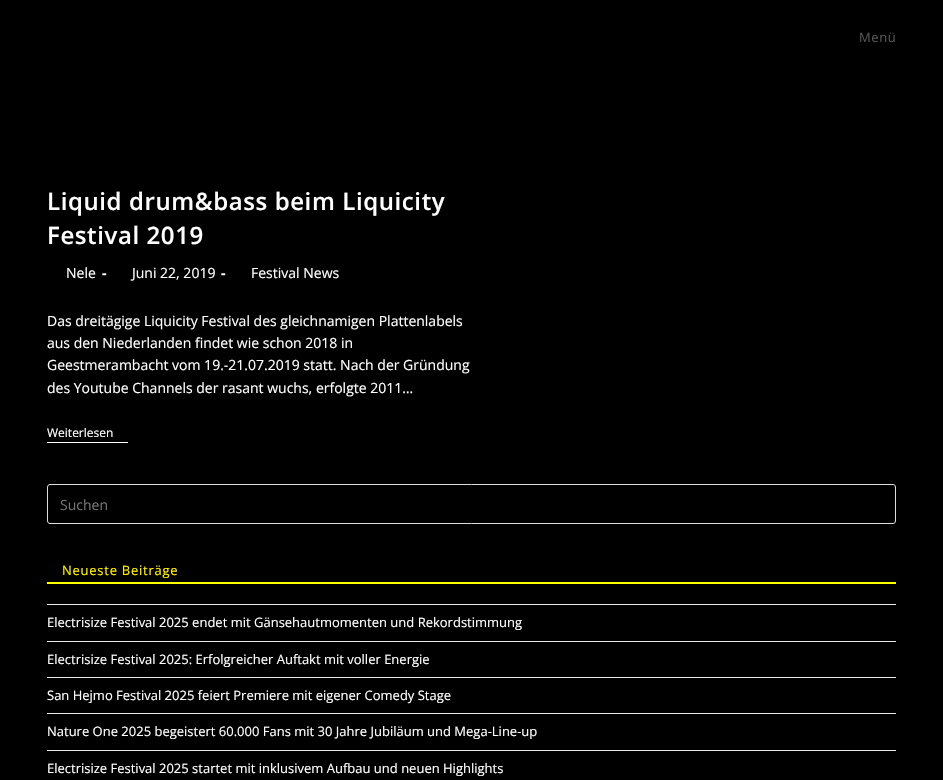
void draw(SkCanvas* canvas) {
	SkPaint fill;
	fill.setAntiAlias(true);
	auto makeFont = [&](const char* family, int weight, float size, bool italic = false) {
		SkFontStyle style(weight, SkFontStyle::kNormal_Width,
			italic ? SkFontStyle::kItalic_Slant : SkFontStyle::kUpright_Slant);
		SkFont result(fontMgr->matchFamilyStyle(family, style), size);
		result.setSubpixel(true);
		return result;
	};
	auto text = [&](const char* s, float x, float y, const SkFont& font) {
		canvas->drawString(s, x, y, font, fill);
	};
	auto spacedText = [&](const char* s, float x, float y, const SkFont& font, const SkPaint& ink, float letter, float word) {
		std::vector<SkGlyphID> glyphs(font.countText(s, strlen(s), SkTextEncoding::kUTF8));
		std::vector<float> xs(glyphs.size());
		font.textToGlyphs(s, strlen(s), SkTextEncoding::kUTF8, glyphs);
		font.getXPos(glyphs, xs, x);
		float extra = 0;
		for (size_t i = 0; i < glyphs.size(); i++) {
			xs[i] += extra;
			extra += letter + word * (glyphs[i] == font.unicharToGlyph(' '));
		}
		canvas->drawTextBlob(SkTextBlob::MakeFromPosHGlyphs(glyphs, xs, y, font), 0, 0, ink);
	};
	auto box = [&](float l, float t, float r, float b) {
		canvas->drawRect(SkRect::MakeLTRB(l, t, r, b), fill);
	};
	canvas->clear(0xFF000000);
	fill.setColor(0xFFFFFFFF);
	box(47, 442, 128, 443);
	fill.setStyle(SkPaint::kStroke_Style);
	fill.setStrokeWidth(1);
	fill.setColor(0xFFDDDDDD);
	canvas->drawRoundRect(SkRect::MakeLTRB(47.5f, 484.5f, 895.5f, 523.5f), 2.5f, 2.5f, fill);
	fill.setStyle(SkPaint::kFill_Style);
	fill.setColor(0xFFFFFF00);
	box(47, 582, 896, 584);
	fill.setColor(0xFFE9E9E9);
	box(47, 604, 896, 605);
	box(47, 641, 896, 642);
	box(47, 677, 896, 678);
	box(47, 713, 896, 714);
	box(47, 750, 896, 751);
	auto font1 = makeFont("Open Sans", 400, 13);
	fill.setColor(0xFF555555);
	spacedText("Menü", 859, 42, font1, fill, 0.6f, 0);
	auto font2 = makeFont("Open Sans", 600, 24);
	fill.setColor(0xFFFFFFFF);
	spacedText("Liquid drum&bass beim Liquicity", 47, 210, font2, fill, 0.6f, 0);
	spacedText("Festival 2019", 47, 244, font2, fill, 0.6f, 0);
	auto font3 = makeFont("Open Sans", 400, 14);
	text("Nele", 66, 278, font3);
	auto font4 = makeFont("Open Sans", 700, 14);
	text("-", 102, 278, font4);
	text("Juni 22, 2019", 132, 278, font3);
	text("-", 221, 278, font4);
	text("Festival News", 251, 278, font3);
	text("Das dreitägige Liquicity Festival des gleichnamigen Plattenlabels", 47, 326, font3);
	text("aus den Niederlanden findet wie schon 2018 in", 47, 348, font3);
	text("Geestmerambacht vom 19.-21.07.2019 statt. Nach der Gründung", 47, 370, font3);
	text("des Youtube Channels der rasant wuchs, erfolgte 2011…", 47, 393, font3);
	auto font5 = makeFont("Open Sans", 400, 12);
	text("Weiterlesen", 47, 437, font5);
	fill.setColor(0xFF757575);
	text("Suchen", 60, 510, font3);
	fill.setColor(0xFFFFF000);
	spacedText("Neueste Beiträge", 62, 575, font1, fill, 0.75f, 0);
	fill.setColor(0xFFFFFFFF);
	text("Electrisize Festival 2025 endet mit Gänsehautmomenten und Rekordstimmung", 47, 627, font1);
	text("Electrisize Festival 2025: Erfolgreicher Auftakt mit voller Energie", 47, 664, font1);
	text("San Hejmo Festival 2025 feiert Premiere mit eigener Comedy Stage", 47, 700, font1);
	text("Nature One 2025 begeistert 60.000 Fans mit 30 Jahre Jubiläum und Mega-Line-up", 47, 736, font1);
	text("Electrisize Festival 2025 startet mit inklusivem Aufbau und neuen Highlights", 47, 773, font1);
}
